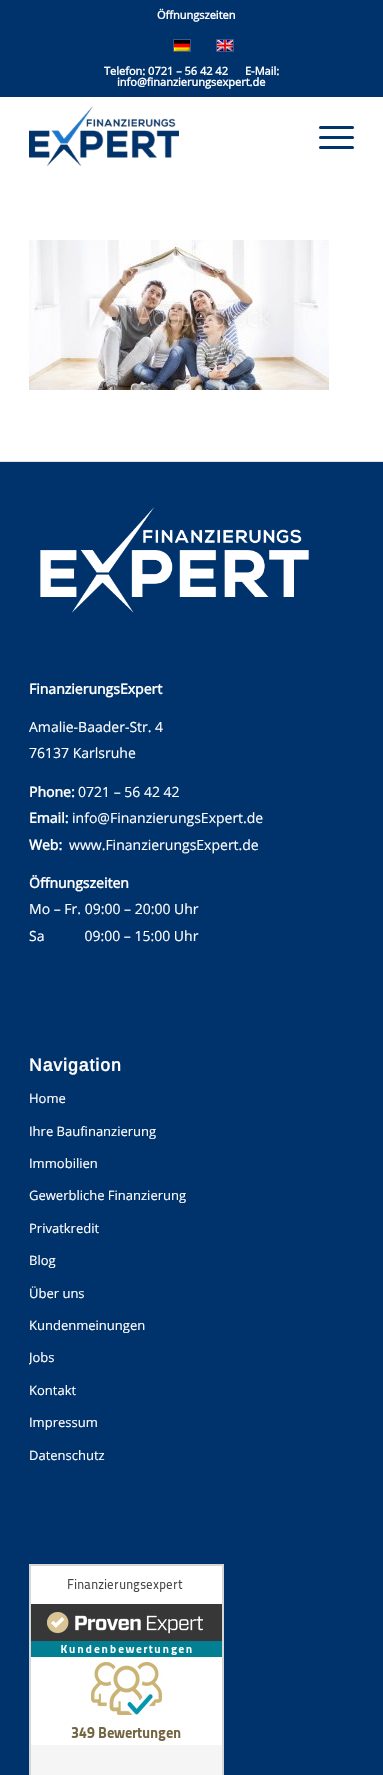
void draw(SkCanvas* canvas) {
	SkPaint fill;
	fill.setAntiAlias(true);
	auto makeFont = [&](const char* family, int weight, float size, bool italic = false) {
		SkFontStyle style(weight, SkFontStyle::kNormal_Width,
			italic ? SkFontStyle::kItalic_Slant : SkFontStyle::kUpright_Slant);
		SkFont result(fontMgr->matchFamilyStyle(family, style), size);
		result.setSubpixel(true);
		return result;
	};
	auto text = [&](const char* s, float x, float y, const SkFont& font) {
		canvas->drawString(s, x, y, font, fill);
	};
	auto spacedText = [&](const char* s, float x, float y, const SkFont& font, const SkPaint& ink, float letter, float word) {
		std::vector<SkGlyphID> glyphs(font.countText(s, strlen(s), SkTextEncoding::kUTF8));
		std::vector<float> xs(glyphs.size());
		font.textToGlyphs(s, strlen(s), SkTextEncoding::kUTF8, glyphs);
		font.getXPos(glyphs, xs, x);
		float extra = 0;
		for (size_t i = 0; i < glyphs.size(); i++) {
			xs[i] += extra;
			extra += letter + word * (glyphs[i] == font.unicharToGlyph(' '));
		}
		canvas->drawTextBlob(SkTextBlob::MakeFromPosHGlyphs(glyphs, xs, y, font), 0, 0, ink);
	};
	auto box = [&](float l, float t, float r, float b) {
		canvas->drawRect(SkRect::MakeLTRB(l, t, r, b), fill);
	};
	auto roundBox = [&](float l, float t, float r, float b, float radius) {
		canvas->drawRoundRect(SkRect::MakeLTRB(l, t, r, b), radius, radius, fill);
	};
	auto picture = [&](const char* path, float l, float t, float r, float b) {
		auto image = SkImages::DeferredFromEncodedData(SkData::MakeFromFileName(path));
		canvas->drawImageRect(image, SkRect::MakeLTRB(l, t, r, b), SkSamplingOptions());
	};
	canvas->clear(0xFFFFFFFF);
	fill.setColor(0xFF00326C);
	box(0, 0, 383, 97);
	fill.setStyle(SkPaint::kStroke_Style);
	fill.setStrokeWidth(1);
	fill.setColor(0xFF335B89);
	canvas->drawRect(SkRect::MakeLTRB(173.5f, 39.5f, 190.5f, 51.5f), fill);
	picture("image0.png", 174, 40, 190, 51);
	canvas->drawRect(SkRect::MakeLTRB(216.5f, 39.5f, 233.5f, 51.5f), fill);
	picture("image1.png", 217, 40, 233, 51);
	picture("image2.png", 29, 106, 179, 166);
	fill.setStyle(SkPaint::kFill_Style);
	fill.setColor(0xFF00346B);
	roundBox(319, 136, 354, 139, 1.5f);
	roundBox(319, 126, 354, 129, 1.5f);
	roundBox(319, 146, 354, 149, 1.5f);
	picture("image3.png", 29, 240, 329, 390);
	fill.setColor(0xFF00326C);
	box(0, 462, 383, 1775);
	fill.setColor(0xFFE1E1E1);
	box(0, 461, 383, 462);
	picture("image4.png", 40, 507, 309, 613);
	picture("image5.png", 29, 1564, 224, 1775);
	auto font1 = makeFont("Open Sans", 700, 11);
	fill.setColor(0xFFFFFFFF);
	text("Öffnungszeiten", 157, 19, font1);
	text("Telefon: 0721 – 56 42 42", 104, 75, font1);
	text("E-Mail:", 245, 75, font1);
	text("info@finanzierungsexpert.de", 117, 86, font1);
	auto font2 = makeFont("Open Sans", 700, 14);
	text("FinanzierungsExpert", 29, 694, font2);
	auto font3 = makeFont("Open Sans", 400, 14);
	text("Amalie-Baader-Str. 4", 29, 732, font3);
	text("76137 Karlsruhe", 29, 758, font3);
	text("Phone:", 29, 797, font2);
	text("0721 – 56 42 42", 78, 797, font3);
	text("Email:", 29, 823, font2);
	text("info@FinanzierungsExpert.de", 72, 823, font3);
	text("Web:", 29, 850, font2);
	text("www.FinanzierungsExpert.de", 69, 850, font3);
	text("Öffnungszeiten", 29, 888, font2);
	text("Mo – Fr. 09:00 – 20:00 Uhr", 29, 914, font3);
	text("Sa           09:00 – 15:00 Uhr", 29, 941, font3);
	auto font4 = makeFont("Arimo", 700, 17.5f);
	spacedText("Navigation", 29, 1071, font4, fill, 1, 0);
	auto font5 = makeFont("Open Sans", 400, 13);
	text("Home", 29, 1103, font5);
	text("Ihre Baufinanzierung", 29, 1136, font5);
	text("Immobilien", 29, 1168, font5);
	text("Gewerbliche Finanzierung", 29, 1200, font5);
	text("Privatkredit", 29, 1233, font5);
	text("Blog", 29, 1265, font5);
	text("Über uns", 29, 1298, font5);
	text("Kundenmeinungen", 29, 1330, font5);
	canvas->save();
	canvas->clipRect(SkRect::MakeLTRB(29, 1041, 354, 1472));
	text("Jobs", 29, 1362, font5);
	canvas->restore();
	text("Kontakt", 29, 1395, font5);
	text("Impressum", 29, 1427, font5);
	text("Datenschutz", 29, 1460, font5);
}
